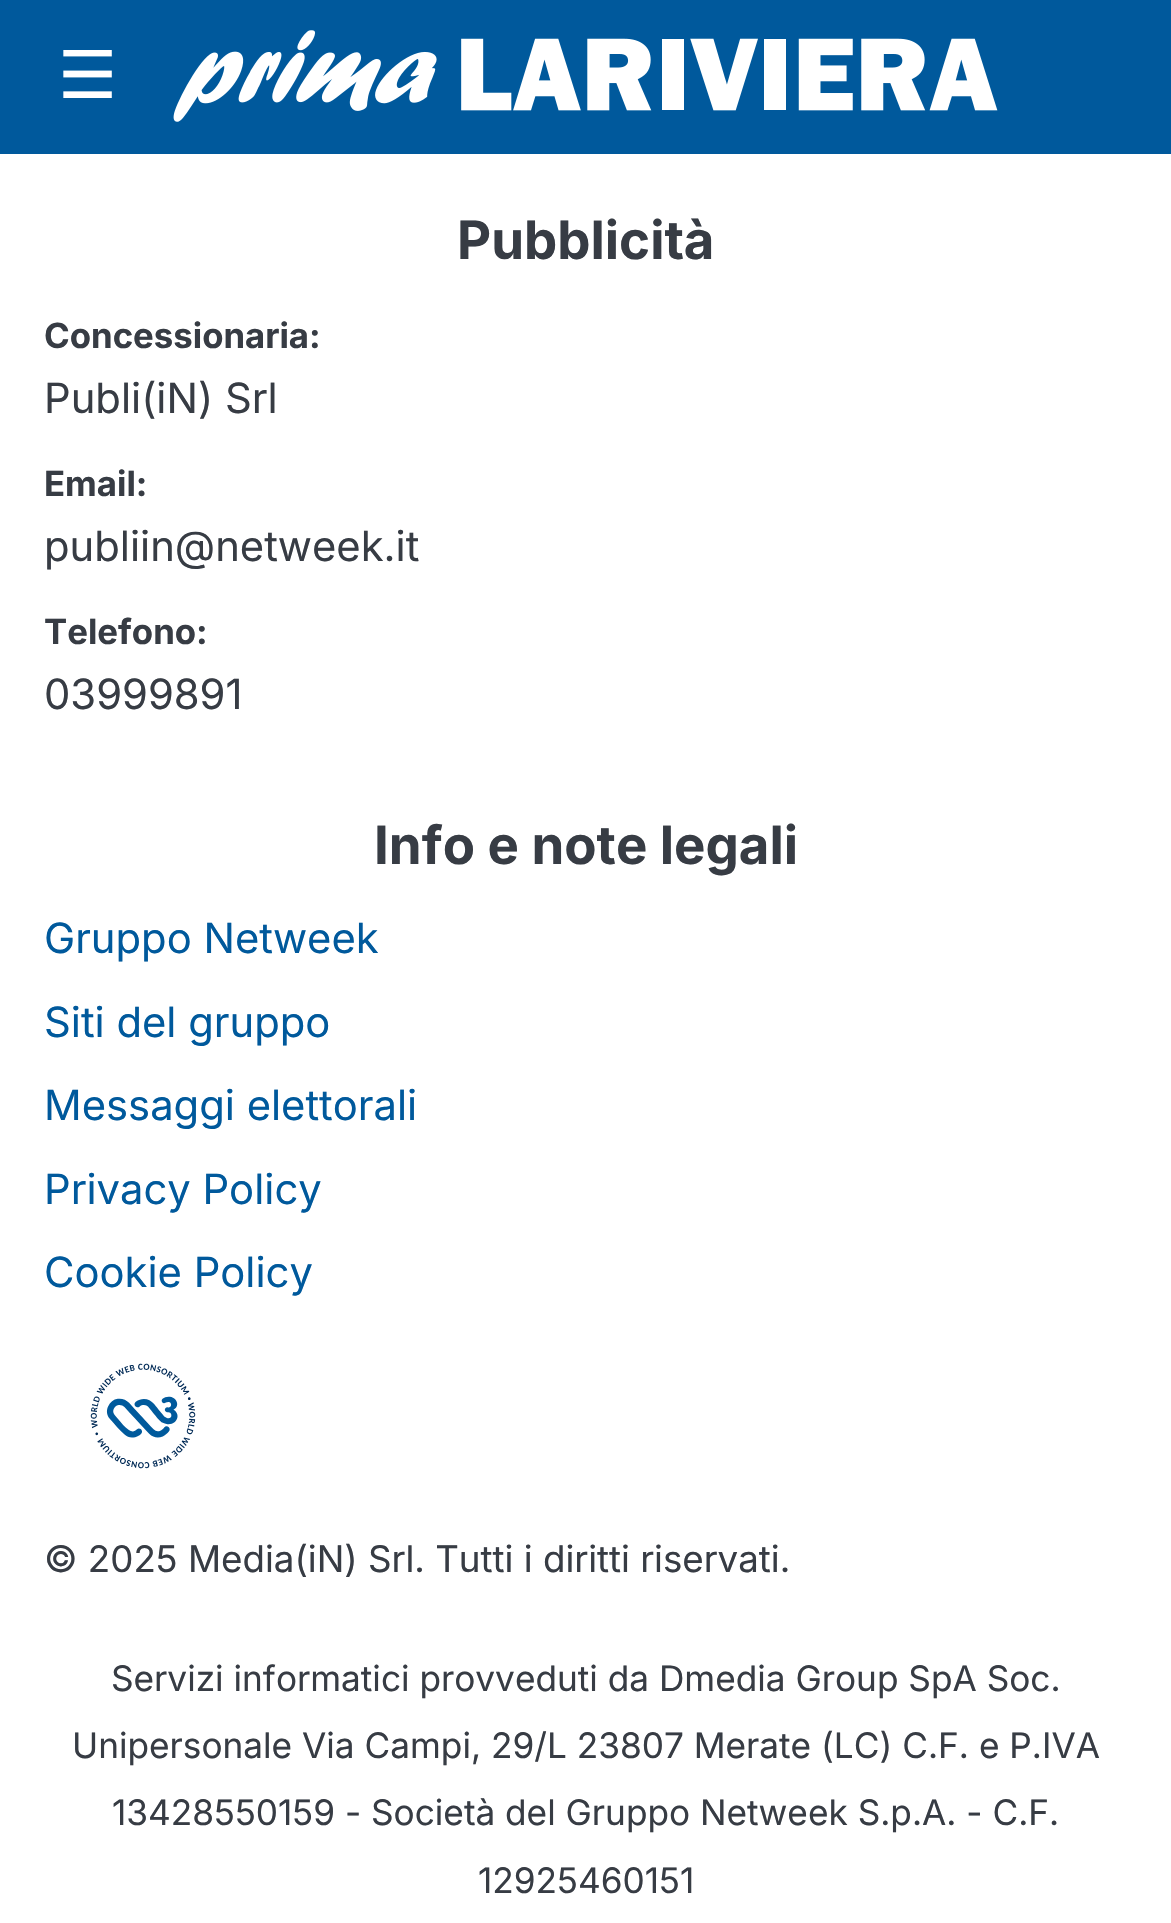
void draw(SkCanvas* canvas) {
	SkPaint fill;
	fill.setAntiAlias(true);
	auto makeFont = [&](const char* family, int weight, float size, bool italic = false) {
		SkFontStyle style(weight, SkFontStyle::kNormal_Width,
			italic ? SkFontStyle::kItalic_Slant : SkFontStyle::kUpright_Slant);
		SkFont result(fontMgr->matchFamilyStyle(family, style), size);
		result.setSubpixel(true);
		return result;
	};
	auto text = [&](const char* s, float x, float y, const SkFont& font) {
		canvas->drawString(s, x, y, font, fill);
	};
	auto box = [&](float l, float t, float r, float b) {
		canvas->drawRect(SkRect::MakeLTRB(l, t, r, b), fill);
	};
	auto picture = [&](const char* path, float l, float t, float r, float b) {
		auto image = SkImages::DeferredFromEncodedData(SkData::MakeFromFileName(path));
		canvas->drawImageRect(image, SkRect::MakeLTRB(l, t, r, b), SkSamplingOptions());
	};
	canvas->clear(0xFFFFFFFF);
	fill.setColor(0xFF00599C);
	box(0, 0, 1171, 154);
	picture("image0.png", 173, 30, 998, 122);
	picture("image1.png", 90, 1363, 196, 1469);
	auto font1 = makeFont("DejaVu Sans", 400, 66);
	fill.setColor(0xFFFFFFFF);
	text("☰", 58, 98, font1);
	auto font2 = makeFont("Inter", 700, 52.75f);
	fill.setColor(0xFF373C44);
	text("Pubblicità", 457, 259, font2);
	auto font3 = makeFont("Inter", 700, 34.75f);
	text("Concessionaria:", 44, 348, font3);
	auto font4 = makeFont("Inter", 400, 41.75f);
	text("Publi(iN) Srl", 44, 413, font4);
	text("Email:", 44, 496, font3);
	text("publiin@netweek.it", 44, 561, font4);
	text("Telefono:", 44, 644, font3);
	text("03999891", 44, 709, font4);
	text("Info e note legali", 374, 864, font2);
	fill.setColor(0xFF00599C);
	text("Gruppo Netweek", 44, 953, font4);
	text("Siti del gruppo", 44, 1037, font4);
	text("Messaggi elettorali", 44, 1120, font4);
	text("Privacy Policy", 44, 1204, font4);
	text("Cookie Policy", 44, 1287, font4);
	auto font5 = makeFont("Inter", 400, 36.7f);
	fill.setColor(0xFF373C44);
	text("© 2025 Media(iN) Srl. Tutti i diritti riservati.", 44, 1572, font5);
	auto font6 = makeFont("Inter", 400, 35.2f);
	text("Servizi informatici provveduti da Dmedia Group SpA Soc.", 111, 1691, font6);
	text("Unipersonale Via Campi, 29/L 23807 Merate (LC) C.F. e P.IVA", 72, 1758, font6);
	text("13428550159 - Società del Gruppo Netweek S.p.A. - C.F.", 112, 1825, font6);
	text("12925460151", 478, 1893, font6);
}
